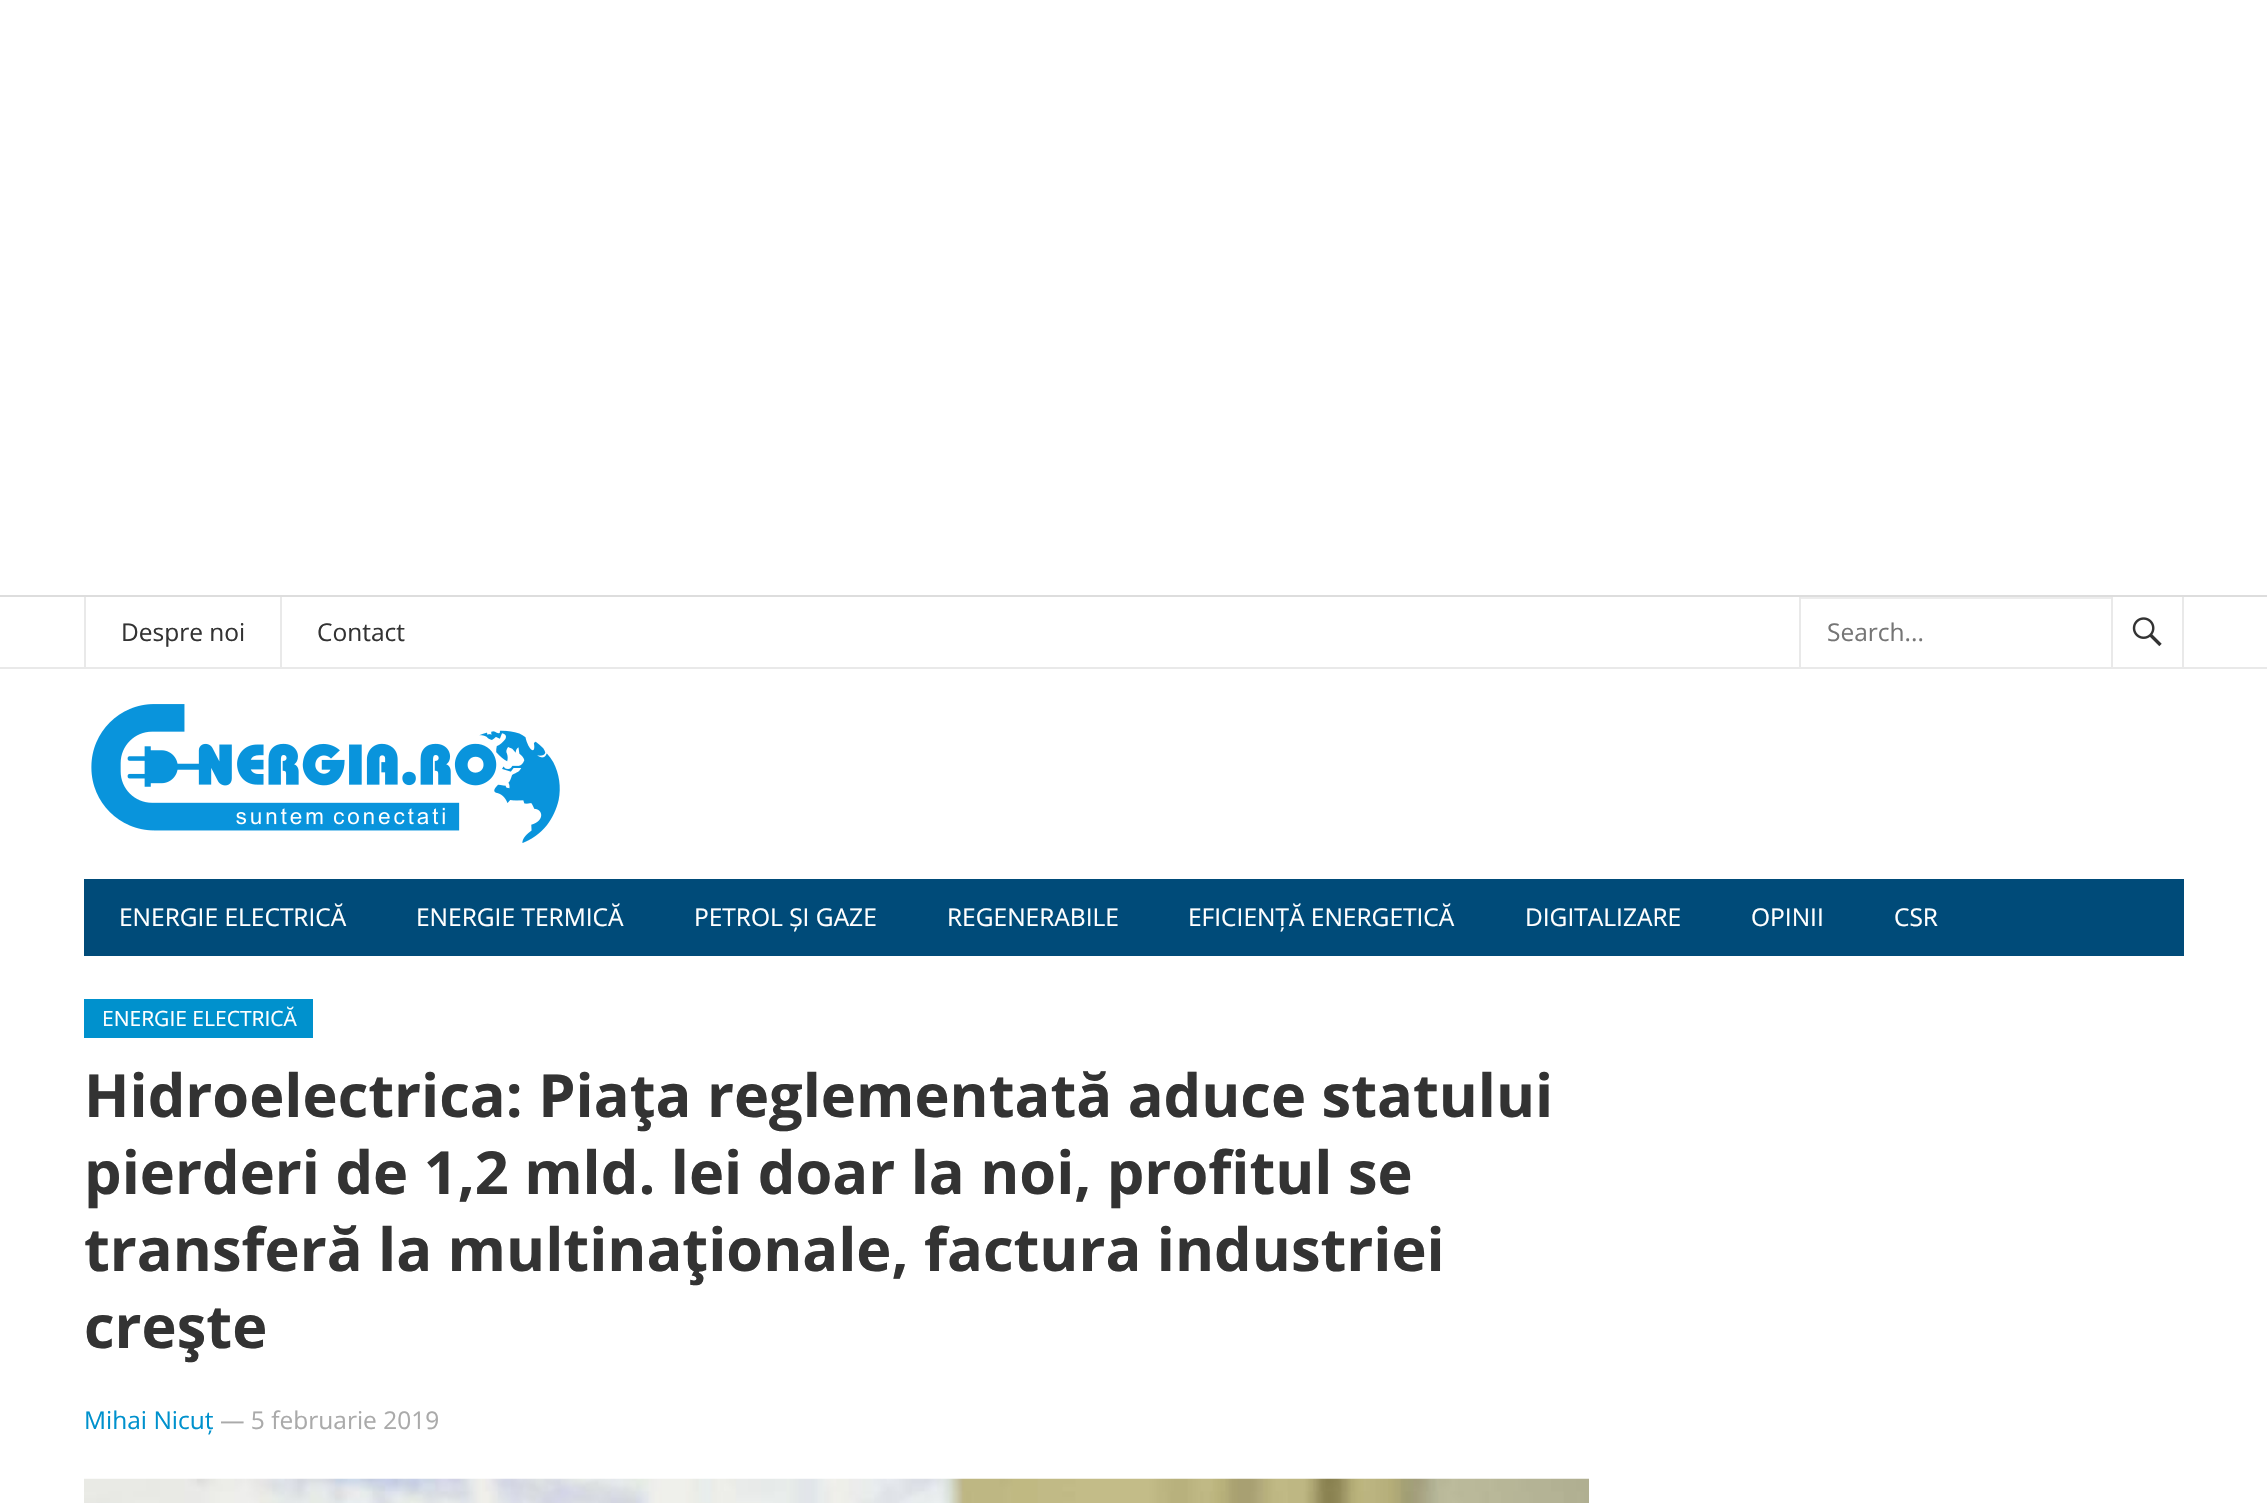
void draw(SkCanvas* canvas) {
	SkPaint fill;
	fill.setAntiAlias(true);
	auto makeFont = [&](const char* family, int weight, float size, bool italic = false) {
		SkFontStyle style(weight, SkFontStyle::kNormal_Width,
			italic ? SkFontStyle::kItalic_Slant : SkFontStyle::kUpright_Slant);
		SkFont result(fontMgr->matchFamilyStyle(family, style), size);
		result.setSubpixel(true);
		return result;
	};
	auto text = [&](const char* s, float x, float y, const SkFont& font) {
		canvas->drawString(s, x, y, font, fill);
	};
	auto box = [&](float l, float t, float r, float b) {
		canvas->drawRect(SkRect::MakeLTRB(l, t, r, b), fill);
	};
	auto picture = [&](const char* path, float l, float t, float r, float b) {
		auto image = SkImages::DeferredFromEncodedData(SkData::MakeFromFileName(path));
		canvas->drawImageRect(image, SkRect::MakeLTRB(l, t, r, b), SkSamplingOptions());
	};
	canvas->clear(0xFFFFFFFF);
	fill.setColor(0xFFDDDDDD);
	box(0, 595, 2267, 597);
	fill.setColor(0xFFE9E9E9);
	box(0, 667, 2267, 669);
	box(84, 597, 86, 667);
	box(280, 597, 282, 667);
	box(2182, 597, 2184, 667);
	box(1799, 597, 1801, 667);
	fill.setColor(0xFFECECEC);
	box(1801, 597, 2114, 599);
	fill.setColor(0xFFFFFFFF);
	box(2113, 597, 2114, 599);
	fill.setColor(0xFFE9E9E9);
	box(2111, 597, 2113, 667);
	picture("image0.png", 2132, 617, 2162, 647);
	picture("image1.png", 91, 704, 560, 843);
	fill.setColor(0xFF004B79);
	box(84, 879, 2184, 956);
	fill.setColor(0xFF0091CD);
	box(84, 999, 313, 1038);
	picture("image2.png", 84, 1478, 1589, 1503);
	auto font1 = makeFont("Open Sans", 400, 24.5f);
	fill.setColor(0xFF333333);
	text("Despre noi", 121, 641, font1);
	text("Contact", 317, 641, font1);
	fill.setColor(0xFF757575);
	text("Search...", 1827, 641, font1);
	fill.setColor(0xFFFFFFFF);
	text("ENERGIE ELECTRICĂ", 119, 926, font1);
	text("ENERGIE TERMICĂ", 416, 926, font1);
	text("PETROL ȘI GAZE", 694, 926, font1);
	text("REGENERABILE", 947, 926, font1);
	text("EFICIENȚĂ ENERGETICĂ", 1188, 926, font1);
	text("DIGITALIZARE", 1525, 926, font1);
	text("OPINII", 1751, 926, font1);
	text("CSR", 1894, 926, font1);
	auto font2 = makeFont("Open Sans", 400, 21);
	text("ENERGIE ELECTRICĂ", 102, 1026, font2);
	auto font3 = makeFont("Open Sans", 700, 59.5f);
	fill.setColor(0xFF333333);
	text("Hidroelectrica: Piaţa reglementată aduce statului", 84, 1117, font3);
	text("pierderi de 1,2 mld. lei doar la noi, profitul se", 84, 1194, font3);
	text("transferă la multinaţionale, factura industriei", 84, 1271, font3);
	text("creşte", 84, 1348, font3);
	fill.setColor(0xFF0091CD);
	text("Mihai Nicuț", 84, 1429, font1);
	fill.setColor(0xFFAAAAAA);
	text("— 5 februarie 2019", 220, 1429, font1);
}
